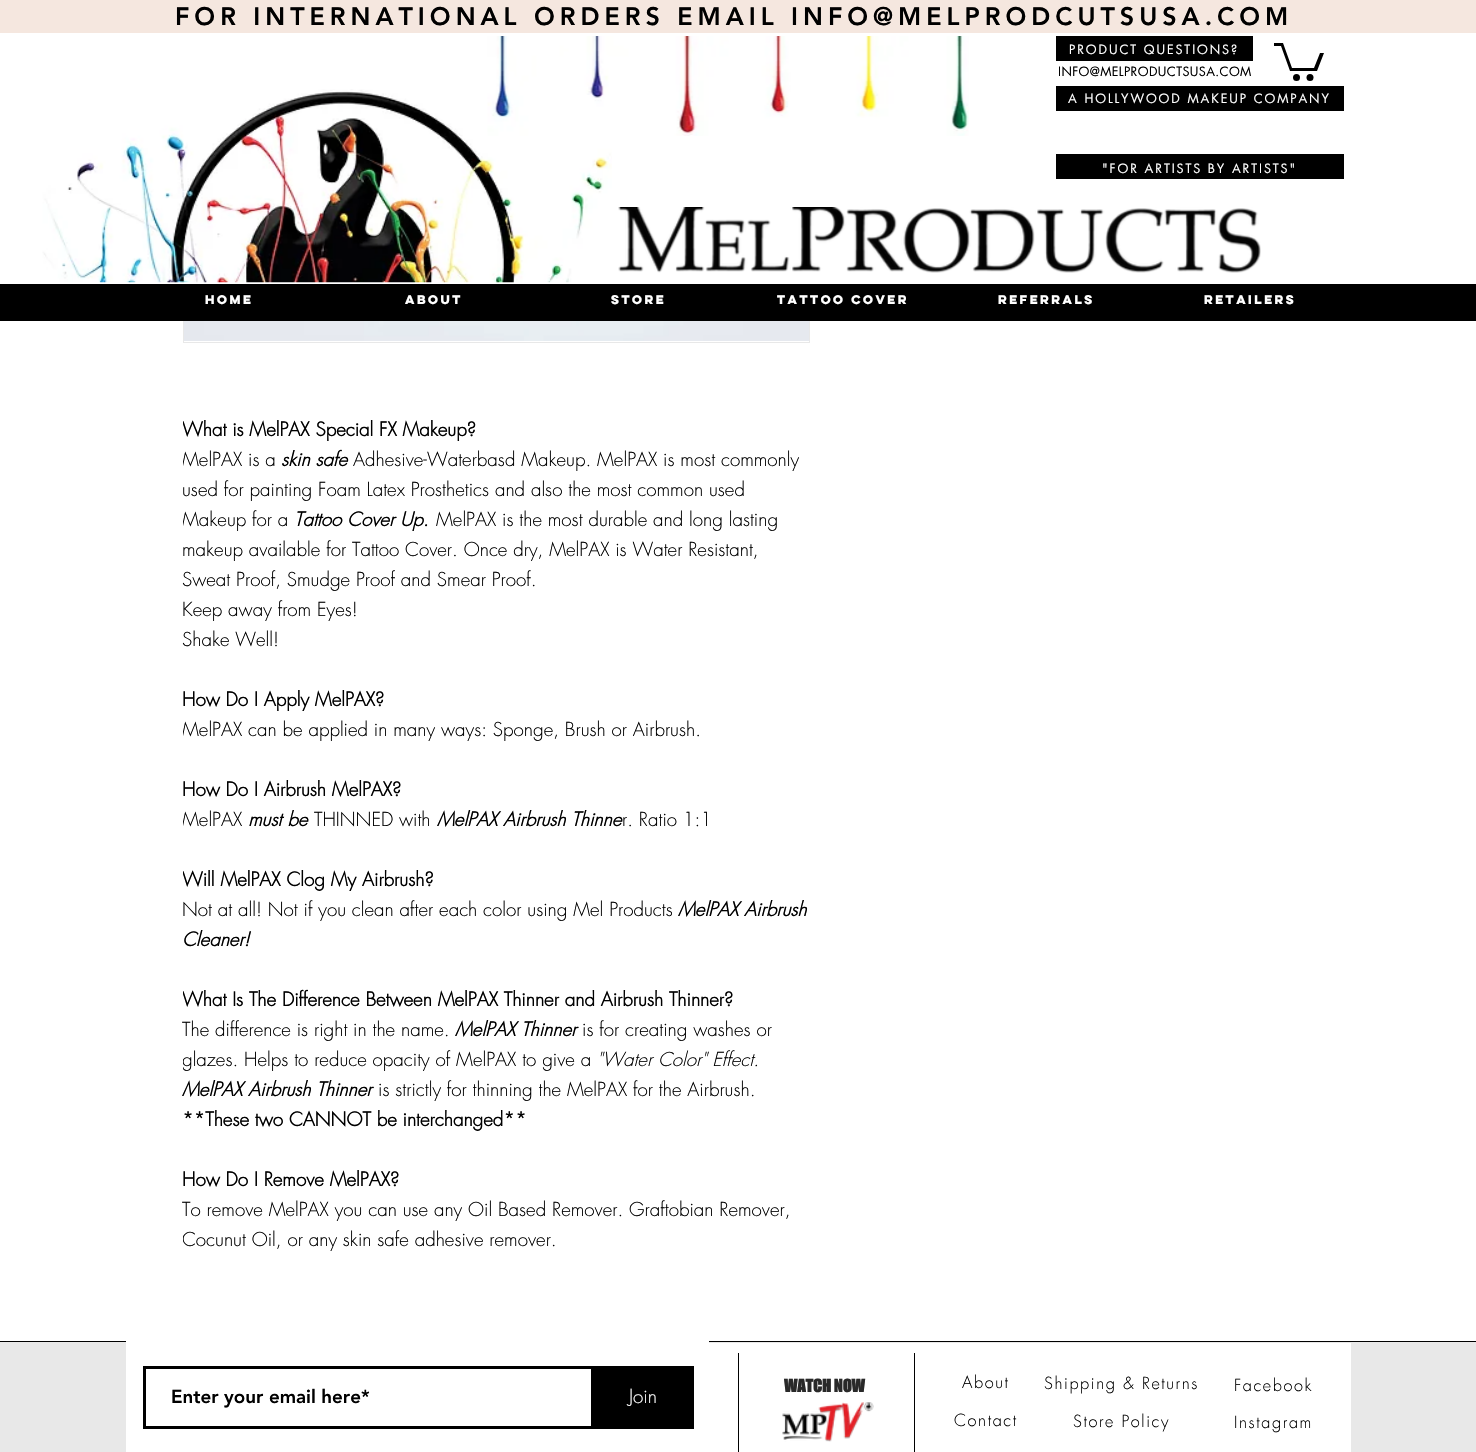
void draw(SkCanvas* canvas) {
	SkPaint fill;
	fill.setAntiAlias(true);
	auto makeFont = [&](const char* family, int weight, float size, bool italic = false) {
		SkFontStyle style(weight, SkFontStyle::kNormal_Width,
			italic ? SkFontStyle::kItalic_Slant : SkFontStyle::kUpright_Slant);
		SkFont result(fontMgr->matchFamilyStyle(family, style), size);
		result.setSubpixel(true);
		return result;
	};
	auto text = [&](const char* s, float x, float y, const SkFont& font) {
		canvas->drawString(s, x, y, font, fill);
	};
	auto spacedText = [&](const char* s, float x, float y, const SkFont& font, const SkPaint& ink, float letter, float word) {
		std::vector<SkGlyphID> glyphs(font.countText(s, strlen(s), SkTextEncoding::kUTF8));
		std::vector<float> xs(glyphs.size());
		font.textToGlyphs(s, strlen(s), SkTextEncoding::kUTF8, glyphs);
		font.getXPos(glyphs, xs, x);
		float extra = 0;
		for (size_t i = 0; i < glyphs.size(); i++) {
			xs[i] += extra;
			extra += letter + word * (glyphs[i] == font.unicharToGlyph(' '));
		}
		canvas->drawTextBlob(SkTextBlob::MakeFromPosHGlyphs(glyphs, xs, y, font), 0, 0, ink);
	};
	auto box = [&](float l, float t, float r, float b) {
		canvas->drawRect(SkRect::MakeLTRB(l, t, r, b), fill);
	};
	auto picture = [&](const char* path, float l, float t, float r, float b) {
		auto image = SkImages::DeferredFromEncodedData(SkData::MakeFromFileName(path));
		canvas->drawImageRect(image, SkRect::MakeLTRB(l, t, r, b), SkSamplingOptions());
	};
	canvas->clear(0xFFFFFFFF);
	fill.setStyle(SkPaint::kStroke_Style);
	fill.setStrokeWidth(1);
	fill.setColor(0xFFE8E8E8);
	canvas->drawRect(SkRect::MakeLTRB(183.5f, -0.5f, 809.5f, 342.5f), fill);
	fill.setStyle(SkPaint::kFill_Style);
	fill.setColor(0xFFF5E7DF);
	box(0, 0, 1476, 33);
	fill.setColor(0xFFFFFFFF);
	box(183, 33, 810, 284);
	picture("image1.png", 42, 89, 612, 283);
	picture("image0.png", 487, 36, 969, 136);
	fill.setColor(0xFF000000);
	box(1056, 36, 1253, 61);
	canvas->drawPath(SkPathBuilder().moveTo(1324, 53).lineTo(1317, 71).lineTo(1290, 71).lineTo(1281, 46).lineTo(1274, 46).lineTo(1274, 43).lineTo(1283, 43).lineTo(1292, 68).lineTo(1314, 68).lineTo(1320, 53).detach(), fill);
	canvas->drawCircle(1310, 77.5f, 3.5f, fill);
	canvas->drawCircle(1296.5f, 77.5f, 3.5f, fill);
	box(1056, 86, 1344, 111);
	box(1056, 154, 1344, 179);
	picture("image2.png", 618, 207, 1261, 273);
	box(0, 284, 1476, 321);
	picture("image3.png", 184, 321, 809, 341);
	fill.setColor(0xFFE8E8E8);
	box(0, 1342, 1476, 1452);
	fill.setColor(0xFF000000);
	box(0, 1341, 1476, 1342);
	fill.setColor(0xFFFFFFFF);
	box(709, 1343, 1351, 1452);
	fill.setColor(0xFF000000);
	box(738, 1353, 739, 1452);
	box(914, 1353, 915, 1452);
	fill.setColor(0xFFFFFFFF);
	box(126, 1341, 709, 1452);
	fill.setStyle(SkPaint::kStroke_Style);
	fill.setStrokeWidth(3);
	fill.setColor(0xFF000000);
	canvas->drawRect(SkRect::MakeLTRB(144.5f, 1367.5f, 592.5f, 1427.5f), fill);
	fill.setStyle(SkPaint::kFill_Style);
	box(594, 1366, 694, 1429);
	picture("image4.png", 782, 1402, 874, 1442);
	auto font1 = makeFont("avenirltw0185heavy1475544", 900, 25);
	spacedText("FOR INTERNATIONAL ORDERS EMAIL INFO@MELPRODCUTSUSA.COM", 175, 25, font1, fill, 5, 0);
	auto font2 = makeFont("futura", 400, 12.5f);
	fill.setColor(0xFFFFFFFF);
	spacedText("PRODUCT QUESTIONS?", 1069, 54, font2, fill, 1.9f, 0);
	fill.setColor(0xFF000000);
	spacedText("INFO@MELPRODUCTSUSA.COM", 1058, 76, font2, fill, 0.4f, 0);
	fill.setColor(0xFFFFFFFF);
	spacedText("A HOLLYWOOD MAKEUP COMPANY", 1068, 103, font2, fill, 1.9f, 0);
	spacedText("\"FOR ARTISTS BY ARTISTS\"", 1102, 173, font2, fill, 1.9f, 0);
	auto font3 = makeFont("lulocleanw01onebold", 700, 11.25f);
	text("HOME", 205, 304, font3);
	text("ABOUT", 405, 304, font3);
	text("STORE", 611, 304, font3);
	text("Tattoo Cover", 777, 304, font3);
	text("REFERRALS", 998, 304, font3);
	text("RETAILERS", 1204, 304, font3);
	canvas->save();
	canvas->clipRect(SkRect::MakeLTRB(183, 415, 808, 1285));
	auto font4 = makeFont("futura", 700, 18.75f);
	fill.setColor(0xFF000000);
	text("What is MelPAX Special FX Makeup?", 182, 436, font4);
	auto font5 = makeFont("futura", 300, 18.75f);
	text("MelPAX is a", 182, 466, font5);
	canvas->restore();
	auto font6 = makeFont("futura", 700, 18.75f, true);
	text("skin safe", 281, 466, font6);
	text("Adhesive-Waterbasd Makeup. MelPAX is most commonly", 353, 466, font5);
	text("used for painting Foam Latex Prosthetics and also the most common used", 182, 496, font5);
	canvas->save();
	canvas->clipRect(SkRect::MakeLTRB(183, 415, 808, 1285));
	text("Makeup for a", 182, 526, font5);
	canvas->restore();
	text("Tattoo Cover Up.", 294, 526, font6);
	text("MelPAX is the most durable and long lasting", 436, 526, font5);
	text("makeup available for Tattoo Cover. Once dry, MelPAX is Water Resistant,", 182, 556, font5);
	text("Sweat Proof, Smudge Proof and Smear Proof.", 182, 586, font5);
	text("Keep away from Eyes!", 182, 616, font5);
	text("Shake Well!", 182, 646, font5);
	text("How Do I Apply MelPAX?", 182, 706, font4);
	canvas->save();
	canvas->clipRect(SkRect::MakeLTRB(183, 415, 808, 1285));
	text("MelPAX can be applied in many ways: Sponge, Brush or Airbrush.", 182, 736, font5);
	canvas->restore();
	text("How Do I Airbrush MelPAX?", 182, 796, font4);
	canvas->save();
	canvas->clipRect(SkRect::MakeLTRB(183, 415, 808, 1285));
	text("MelPAX", 182, 826, font5);
	canvas->restore();
	text("must be", 248, 826, font6);
	text("THINNED with", 314, 826, font5);
	text("MelPAX Airbrush Thinne", 437, 826, font6);
	text("r. Ratio 1:1", 622, 826, font5);
	canvas->save();
	canvas->clipRect(SkRect::MakeLTRB(183, 415, 808, 1285));
	text("Will MelPAX Clog My Airbrush?", 182, 886, font4);
	canvas->restore();
	text("Not at all! Not if you clean after each color using Mel Products", 182, 916, font5);
	text("MelPAX Airbrush", 678, 916, font6);
	text("Cleaner!", 182, 946, font6);
	canvas->save();
	canvas->clipRect(SkRect::MakeLTRB(183, 415, 808, 1285));
	text("What Is The Difference Between MelPAX Thinner and Airbrush Thinner?", 182, 1006, font4);
	canvas->restore();
	text("The difference is right in the name.", 182, 1036, font5);
	text("MelPAX Thinner", 455, 1036, font6);
	text("is for creating washes or", 582, 1036, font5);
	canvas->save();
	canvas->clipRect(SkRect::MakeLTRB(183, 415, 808, 1285));
	text("glazes. Helps to reduce opacity of MelPAX to give a", 182, 1066, font5);
	canvas->restore();
	auto font7 = makeFont("futura", 300, 18.75f, true);
	text("\"Water Color\" Effect.", 597, 1066, font7);
	text("MelPAX Airbrush Thinner", 182, 1096, font6);
	text("is strictly for thinning the MelPAX for the Airbrush.", 378, 1096, font5);
	text("**These two CANNOT be interchanged**", 182, 1126, font4);
	text("How Do I Remove MelPAX?", 182, 1186, font4);
	text("To remove MelPAX you can use any Oil Based Remover. Graftobian Remover,", 182, 1216, font5);
	canvas->save();
	canvas->clipRect(SkRect::MakeLTRB(183, 415, 808, 1285));
	text("Cocunut Oil, or any skin safe adhesive remover.", 182, 1246, font5);
	canvas->restore();
	auto font8 = makeFont("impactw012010", 700, 16.25f);
	fill.setColor(0xFF292929);
	text("WATCH NOW", 784, 1392, font8);
	auto font9 = makeFont("futura", 300, 16.25f);
	fill.setColor(0xFF000000);
	spacedText("About", 962, 1388, font9, fill, 1.6f, 0);
	spacedText("Contact", 954, 1426, font9, fill, 1.6f, 0);
	spacedText("Shipping & Returns", 1044, 1389, font9, fill, 1.6f, 0);
	spacedText("Store Policy", 1073, 1427, font9, fill, 1.6f, 0);
	spacedText("Facebook", 1234, 1391, font9, fill, 1.6f, 0);
	spacedText("Instagram", 1234, 1428, font9, fill, 1.6f, 0);
	auto font10 = makeFont("avenirltw0185heavy1475544", 900, 18.75f);
	text("Enter your email here*", 171, 1403, font10);
	fill.setColor(0xFFFFFFFF);
	text("Join", 629, 1403, font5);
}
